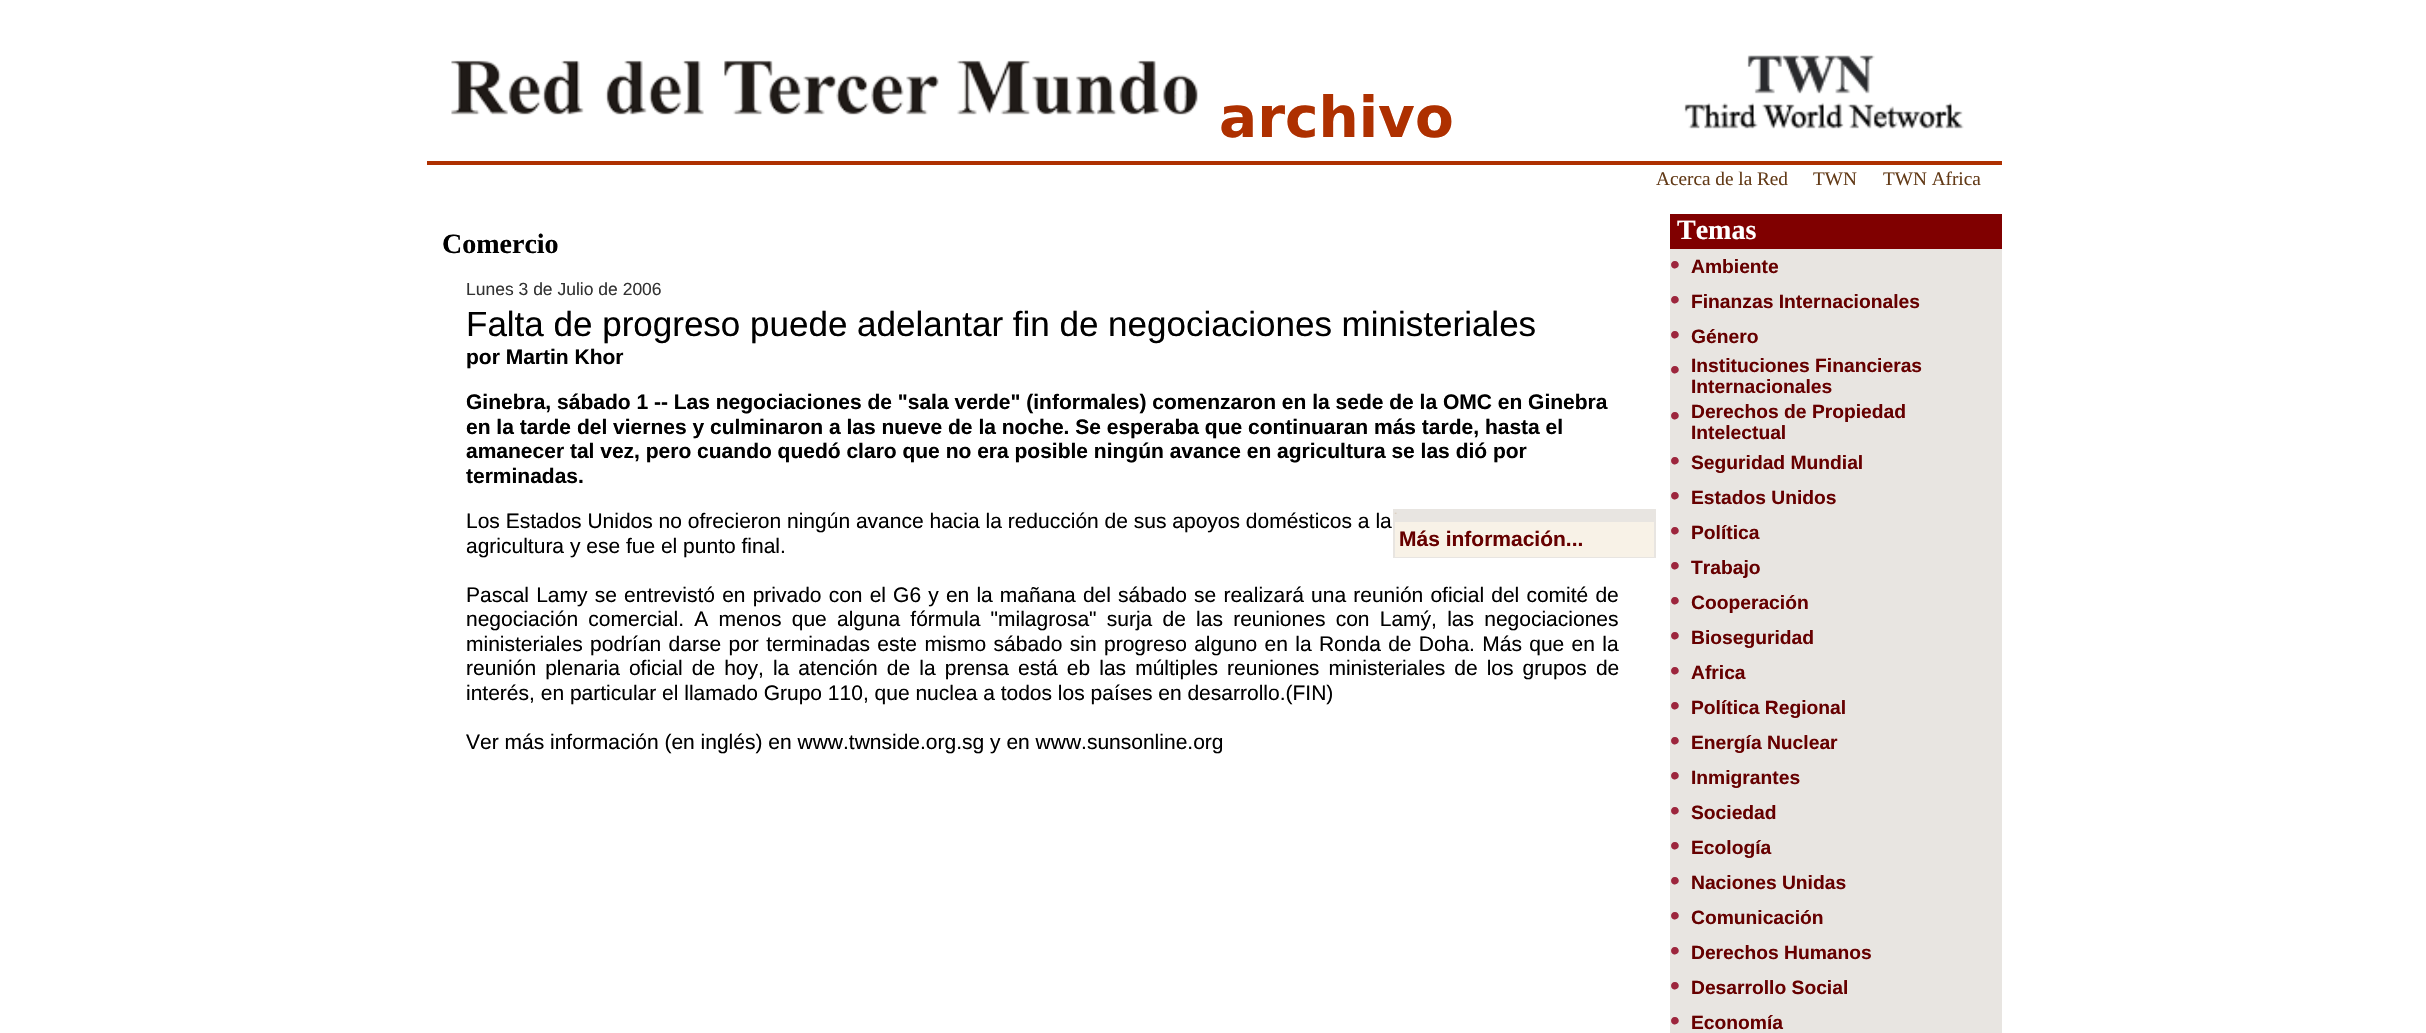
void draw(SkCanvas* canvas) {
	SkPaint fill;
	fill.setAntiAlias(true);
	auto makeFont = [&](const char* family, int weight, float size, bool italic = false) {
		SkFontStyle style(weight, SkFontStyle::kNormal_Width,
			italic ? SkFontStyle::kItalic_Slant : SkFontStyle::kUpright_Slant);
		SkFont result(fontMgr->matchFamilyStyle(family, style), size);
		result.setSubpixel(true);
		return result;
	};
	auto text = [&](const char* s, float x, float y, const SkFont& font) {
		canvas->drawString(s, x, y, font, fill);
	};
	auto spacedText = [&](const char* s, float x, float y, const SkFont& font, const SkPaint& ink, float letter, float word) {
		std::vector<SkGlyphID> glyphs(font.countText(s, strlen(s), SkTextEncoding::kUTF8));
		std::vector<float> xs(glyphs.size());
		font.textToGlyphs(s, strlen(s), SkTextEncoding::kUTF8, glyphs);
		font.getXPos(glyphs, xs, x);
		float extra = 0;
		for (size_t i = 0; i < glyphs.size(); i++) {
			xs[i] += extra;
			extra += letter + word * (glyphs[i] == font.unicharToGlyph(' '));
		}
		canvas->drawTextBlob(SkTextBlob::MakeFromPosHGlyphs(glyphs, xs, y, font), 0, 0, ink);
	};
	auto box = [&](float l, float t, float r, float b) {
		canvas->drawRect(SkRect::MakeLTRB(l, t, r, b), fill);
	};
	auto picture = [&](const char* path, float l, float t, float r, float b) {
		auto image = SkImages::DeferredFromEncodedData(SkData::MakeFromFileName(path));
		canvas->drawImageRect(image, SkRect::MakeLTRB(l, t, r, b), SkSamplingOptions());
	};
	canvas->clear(0xFFFFFFFF);
	fill.setColor(0xFFAE3000);
	box(427, 161, 2002, 165);
	picture("image0.png", 451, 60, 1198, 115);
	picture("image1.png", 1684, 55, 1964, 129);
	fill.setColor(0xFFE8E5E1);
	box(1393, 509, 1656, 558);
	picture("image2.png", 1394, 512, 1397, 514);
	fill.setColor(0xFFF8F2E7);
	box(1395, 522, 1654, 557);
	fill.setColor(0xFFE8E5E1);
	box(1670, 249, 2002, 1033);
	fill.setColor(0xFF800000);
	box(1670, 214, 2002, 249);
	auto font1 = makeFont("DejaVu Sans", 700, 56.5f);
	fill.setColor(0xFFAE3000);
	text("archivo", 1219, 137, font1);
	auto font2 = makeFont("Liberation Serif", 400, 19.25f);
	fill.setColor(0xFF633B18);
	text("Acerca de la Red", 1656, 185, font2);
	text("TWN", 1813, 185, font2);
	text("TWN Africa", 1883, 185, font2);
	auto font3 = makeFont("Liberation Serif", 700, 28);
	fill.setColor(0xFF000000);
	text("Comercio", 442, 253, font3);
	auto font4 = makeFont("Liberation Sans", 400, 17.5f);
	fill.setColor(0xFF333333);
	text("Lunes 3 de Julio de 2006", 466, 295, font4);
	auto font5 = makeFont("Liberation Sans", 400, 35);
	fill.setColor(0xFF000000);
	text("Falta de progreso puede adelantar fin de negociaciones ministeriales", 466, 336, font5);
	auto font6 = makeFont("Liberation Sans", 700, 21);
	text("por Martin Khor", 466, 364, font6);
	text("Ginebra, sábado 1 -- Las negociaciones de \"sala verde\" (informales) comenzaron en la sede de la OMC en Ginebra", 466, 409, font6);
	text("en la tarde del viernes y culminaron a las nueve de la noche. Se esperaba que continuaran más tarde, hasta el", 466, 434, font6);
	text("amanecer tal vez, pero cuando quedó claro que no era posible ningún avance en agricultura se las dió por", 466, 458, font6);
	text("terminadas.", 466, 483, font6);
	auto font7 = makeFont("Liberation Sans", 400, 21);
	text("Los Estados Unidos no ofrecieron ningún avance hacia la reducción de sus apoyos domésticos a la", 466, 528, font7);
	text("agricultura y ese fue el punto final.", 466, 553, font7);
	spacedText("Pascal Lamy se entrevistó en privado con el G6 y en la mañana del sábado se realizará una reunión oficial del comité de", 466, 602, font7, fill, 0, 1.3f);
	spacedText("negociación comercial. A menos que alguna fórmula \"milagrosa\" surja de las reuniones con Lamý, las negociaciones", 466, 626, font7, fill, 0, 4.4f);
	spacedText("ministeriales podrían darse por terminadas este mismo sábado sin progreso alguno en la Ronda de Doha. Más que en la", 466, 651, font7, fill, 0, 1.5f);
	spacedText("reunión plenaria oficial de hoy, la atención de la prensa está eb las múltiples reuniones ministeriales de los grupos de", 466, 675, font7, fill, 0, 3.25f);
	text("interés, en particular el llamado Grupo 110, que nuclea a todos los países en desarrollo.(FIN)", 466, 700, font7);
	text("Ver más información (en inglés) en www.twnside.org.sg y en www.sunsonline.org", 466, 749, font7);
	fill.setColor(0xFF660000);
	text("Más información...", 1399, 546, font6);
	fill.setColor(0xFFFFFFFF);
	text("Temas", 1677, 239, font3);
	auto font8 = makeFont("Liberation Sans", 400, 28);
	fill.setColor(0xFF9D263D);
	text("•", 1670, 274, font8);
	auto font9 = makeFont("Liberation Sans", 700, 19.25f);
	fill.setColor(0xFF660000);
	text("Ambiente", 1691, 273, font9);
	fill.setColor(0xFF9D263D);
	text("•", 1670, 309, font8);
	fill.setColor(0xFF660000);
	text("Finanzas Internacionales", 1691, 308, font9);
	fill.setColor(0xFF9D263D);
	text("•", 1670, 344, font8);
	fill.setColor(0xFF660000);
	text("Género", 1691, 343, font9);
	fill.setColor(0xFF9D263D);
	text("•", 1670, 379, font8);
	fill.setColor(0xFF660000);
	text("Instituciones Financieras", 1691, 372, font9);
	text("Internacionales", 1691, 393, font9);
	fill.setColor(0xFF9D263D);
	text("•", 1670, 425, font8);
	fill.setColor(0xFF660000);
	text("Derechos de Propiedad", 1691, 418, font9);
	text("Intelectual", 1691, 439, font9);
	fill.setColor(0xFF9D263D);
	text("•", 1670, 470, font8);
	fill.setColor(0xFF660000);
	text("Seguridad Mundial", 1691, 469, font9);
	fill.setColor(0xFF9D263D);
	text("•", 1670, 505, font8);
	fill.setColor(0xFF660000);
	text("Estados Unidos", 1691, 504, font9);
	fill.setColor(0xFF9D263D);
	text("•", 1670, 540, font8);
	fill.setColor(0xFF660000);
	text("Política", 1691, 539, font9);
	fill.setColor(0xFF9D263D);
	text("•", 1670, 575, font8);
	fill.setColor(0xFF660000);
	text("Trabajo", 1691, 574, font9);
	fill.setColor(0xFF9D263D);
	text("•", 1670, 610, font8);
	fill.setColor(0xFF660000);
	text("Cooperación", 1691, 609, font9);
	fill.setColor(0xFF9D263D);
	text("•", 1670, 645, font8);
	fill.setColor(0xFF660000);
	text("Bioseguridad", 1691, 644, font9);
	fill.setColor(0xFF9D263D);
	text("•", 1670, 680, font8);
	fill.setColor(0xFF660000);
	text("Africa", 1691, 679, font9);
	fill.setColor(0xFF9D263D);
	text("•", 1670, 715, font8);
	fill.setColor(0xFF660000);
	text("Política Regional", 1691, 714, font9);
	fill.setColor(0xFF9D263D);
	text("•", 1670, 750, font8);
	fill.setColor(0xFF660000);
	text("Energía Nuclear", 1691, 749, font9);
	fill.setColor(0xFF9D263D);
	text("•", 1670, 785, font8);
	fill.setColor(0xFF660000);
	text("Inmigrantes", 1691, 784, font9);
	fill.setColor(0xFF9D263D);
	text("•", 1670, 820, font8);
	fill.setColor(0xFF660000);
	text("Sociedad", 1691, 819, font9);
	fill.setColor(0xFF9D263D);
	text("•", 1670, 855, font8);
	fill.setColor(0xFF660000);
	text("Ecología", 1691, 854, font9);
	fill.setColor(0xFF9D263D);
	text("•", 1670, 890, font8);
	fill.setColor(0xFF660000);
	text("Naciones Unidas", 1691, 889, font9);
	fill.setColor(0xFF9D263D);
	text("•", 1670, 925, font8);
	fill.setColor(0xFF660000);
	text("Comunicación", 1691, 924, font9);
	fill.setColor(0xFF9D263D);
	text("•", 1670, 960, font8);
	fill.setColor(0xFF660000);
	text("Derechos Humanos", 1691, 959, font9);
	fill.setColor(0xFF9D263D);
	text("•", 1670, 995, font8);
	fill.setColor(0xFF660000);
	text("Desarrollo Social", 1691, 994, font9);
	fill.setColor(0xFF9D263D);
	text("•", 1670, 1030, font8);
	fill.setColor(0xFF660000);
	text("Economía", 1691, 1029, font9);
}
